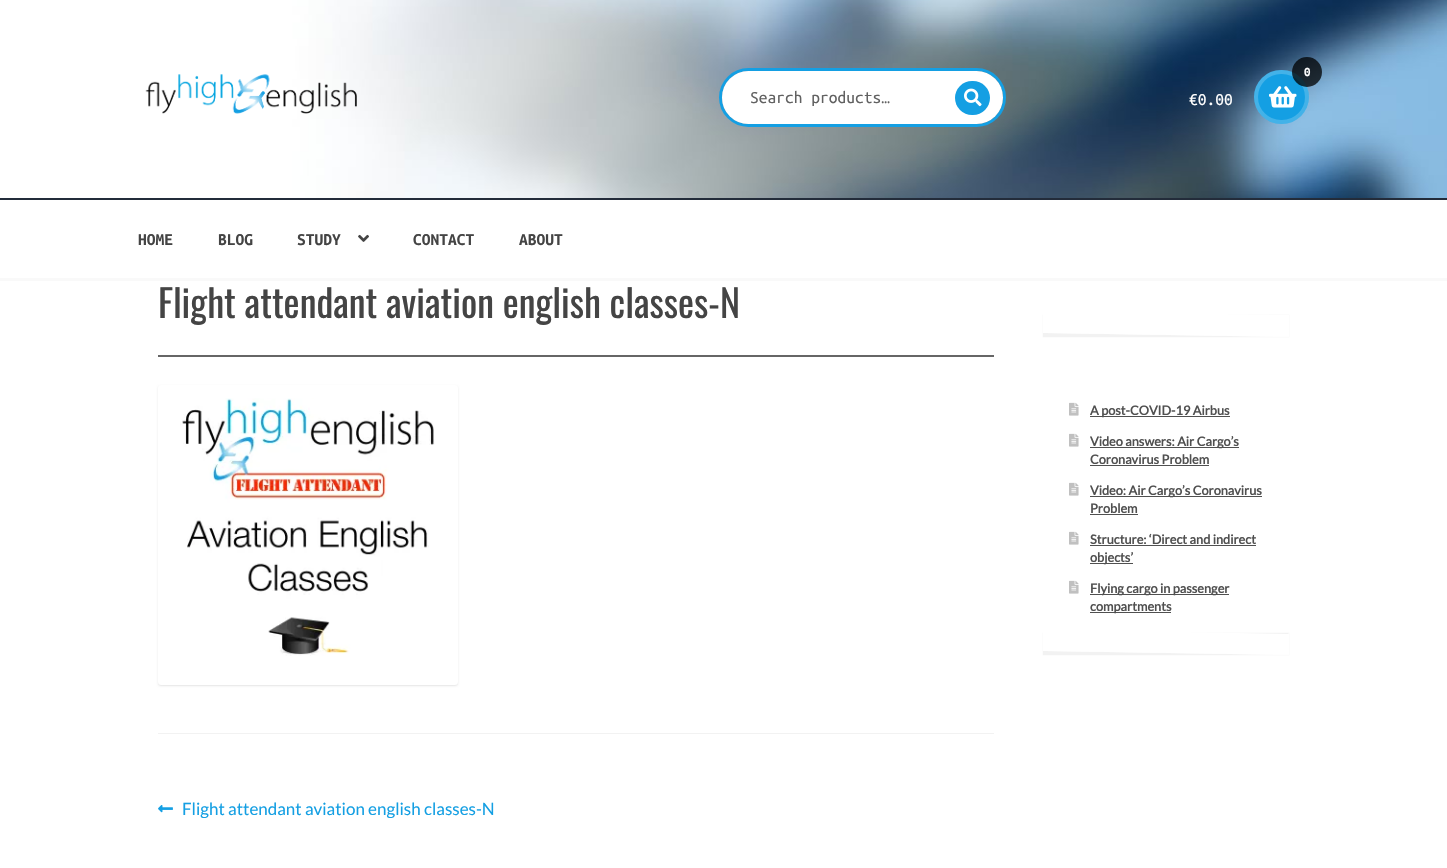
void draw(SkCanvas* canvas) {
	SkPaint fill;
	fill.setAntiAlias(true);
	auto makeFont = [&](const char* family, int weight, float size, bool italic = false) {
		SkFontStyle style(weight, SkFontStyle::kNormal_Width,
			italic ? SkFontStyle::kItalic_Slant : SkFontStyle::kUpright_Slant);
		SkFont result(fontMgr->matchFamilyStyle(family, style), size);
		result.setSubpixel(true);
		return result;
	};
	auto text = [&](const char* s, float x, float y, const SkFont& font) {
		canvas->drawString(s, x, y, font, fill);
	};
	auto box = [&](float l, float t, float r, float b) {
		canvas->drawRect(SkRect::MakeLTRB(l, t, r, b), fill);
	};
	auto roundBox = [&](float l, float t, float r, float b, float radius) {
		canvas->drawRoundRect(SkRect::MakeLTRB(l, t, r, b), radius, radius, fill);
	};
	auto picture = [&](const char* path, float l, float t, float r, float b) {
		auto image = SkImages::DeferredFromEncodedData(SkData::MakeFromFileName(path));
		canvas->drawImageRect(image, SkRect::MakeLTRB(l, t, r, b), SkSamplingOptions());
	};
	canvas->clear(0xFFFFFFFF);
	fill.setColor(0xFFF9F9F9);
	box(0, 278, 1447, 281);
	picture("image0.png", 0, 0, 1447, 198);
	picture("image1.png", 145, 74, 357, 114);
	fill.setStyle(SkPaint::kStroke_Style);
	fill.setStrokeWidth(3);
	fill.setColor(0xFF149FE3);
	canvas->drawRoundRect(SkRect::MakeLTRB(720.5f, 69.5f, 1004.5f, 125.5f), 28, 28, fill);
	fill.setStyle(SkPaint::kFill_Style);
	fill.setColor(0xFFFFFFFF);
	roundBox(722, 71, 1003, 124, 26.5f);
	fill.setColor(0xFF149FE3);
	roundBox(955, 81, 990, 115, 17);
	picture("image2.png", 964, 88, 982, 107);
	roundBox(1254, 70, 1309, 124, 27);
	fill.setStyle(SkPaint::kStroke_Style);
	fill.setStrokeWidth(4);
	fill.setColor(0x33FFFFFF);
	canvas->drawRoundRect(SkRect::MakeLTRB(1256, 72, 1307, 122), 25, 25, fill);
	picture("image3.png", 1269, 86, 1297, 108);
	fill.setStyle(SkPaint::kFill_Style);
	fill.setColor(0xBF000000);
	canvas->drawCircle(1307, 72, 15, fill);
	fill.setColor(0xFF232C3A);
	box(0, 198, 1447, 200);
	picture("image4.png", 358, 234, 369, 242);
	fill.setColor(0xFF666666);
	box(158, 355, 994, 357);
	fill.setColor(0x1A000000);
	fill.setMaskFilter(SkMaskFilter::MakeBlur(kNormal_SkBlurStyle, 1));
	canvas->drawRoundRect(SkRect::MakeLTRB(158, 386, 458, 686), 3, 3, fill);
	fill.setMaskFilter(nullptr);
	fill.setColor(0xFFFFFFFF);
	roundBox(158, 385, 458, 685, 3);
	picture("image5.png", 180, 398, 435, 656);
	fill.setColor(0xFFF2F2F2);
	box(158, 733, 994, 734);
	picture("image6.png", 158, 805, 173, 813);
	fill.setColor(0x0D000000);
	fill.setMaskFilter(SkMaskFilter::MakeBlur(kNormal_SkBlurStyle, 0.5f));
	canvas->drawRect(SkRect::MakeLTRB(1043, 315, 1289, 337), fill);
	fill.setMaskFilter(nullptr);
	fill.setColor(0xFFFFFFFF);
	canvas->drawPath(SkPathBuilder().moveTo(1043, 311).lineTo(1289, 315).lineTo(1289, 337).lineTo(1043, 333).close().detach(), fill);
	canvas->drawPath(SkPathBuilder().moveTo(1043, 332).lineTo(1289, 336).lineTo(1289, 337).lineTo(1043, 333).close().detach(), fill);
	picture("image7.png", 1069, 402, 1079, 416);
	fill.setColor(0xFF505050);
	box(1090, 416, 1230, 417);
	picture("image7.png", 1069, 433, 1079, 447);
	box(1090, 447, 1239, 448);
	box(1090, 465, 1209, 466);
	picture("image7.png", 1069, 482, 1079, 496);
	box(1090, 496, 1262, 497);
	box(1090, 514, 1138, 515);
	picture("image7.png", 1069, 531, 1079, 545);
	box(1090, 545, 1256, 546);
	box(1090, 563, 1133, 564);
	picture("image7.png", 1069, 580, 1079, 594);
	box(1090, 594, 1229, 595);
	box(1090, 612, 1171, 613);
	fill.setColor(0x0D000000);
	fill.setMaskFilter(SkMaskFilter::MakeBlur(kNormal_SkBlurStyle, 0.5f));
	canvas->drawRect(SkRect::MakeLTRB(1043, 633, 1289, 655), fill);
	fill.setMaskFilter(nullptr);
	fill.setColor(0xFFFFFFFF);
	canvas->drawPath(SkPathBuilder().moveTo(1043, 629).lineTo(1289, 634).lineTo(1289, 655).lineTo(1043, 651).close().detach(), fill);
	canvas->drawPath(SkPathBuilder().moveTo(1288, 633.5f).lineTo(1289, 633.5f).lineTo(1288.5f, 655).lineTo(1287.5f, 655).close().detach(), fill);
	canvas->drawPath(SkPathBuilder().moveTo(1043, 650).lineTo(1289, 654).lineTo(1289, 655).lineTo(1043, 651).close().detach(), fill);
	auto font1 = makeFont("Ubuntu Mono", 400, 17.5f);
	fill.setColor(0xFF616161);
	text("Search products…", 750, 103, font1);
	auto font2 = makeFont("Ubuntu Mono", 700, 13);
	fill.setColor(0xFFFFFFFF);
	text("0", 1304, 76, font2);
	text("€0.00", 1189, 105, font1);
	auto font3 = makeFont("Ubuntu Mono", 700, 17.5f);
	fill.setColor(0xFF444444);
	text("HOME", 138, 245, font3);
	text("BLOG", 218, 245, font3);
	text("STUDY", 297, 245, font3);
	text("CONTACT", 413, 245, font3);
	text("ABOUT", 519, 245, font3);
	auto font4 = makeFont("Oswald", 400, 38.1f);
	text("Flight attendant aviation english classes-N", 158, 318, font4);
	auto font5 = makeFont("Lato", 400, 17);
	fill.setColor(0xFF149FE3);
	text("Flight attendant aviation english classes-N", 182, 815, font5);
	auto font6 = makeFont("Lato", 700, 12.75f);
	fill.setColor(0xFF505050);
	text("A post-COVID-19 Airbus", 1090, 415, font6);
	text("Video answers: Air Cargo’s", 1090, 446, font6);
	text("Coronavirus Problem", 1090, 464, font6);
	text("Video: Air Cargo’s Coronavirus", 1090, 495, font6);
	text("Problem", 1090, 513, font6);
	text("Structure: ‘Direct and indirect", 1090, 544, font6);
	text("objects’", 1090, 562, font6);
	text("Flying cargo in passenger", 1090, 593, font6);
	text("compartments", 1090, 611, font6);
}
